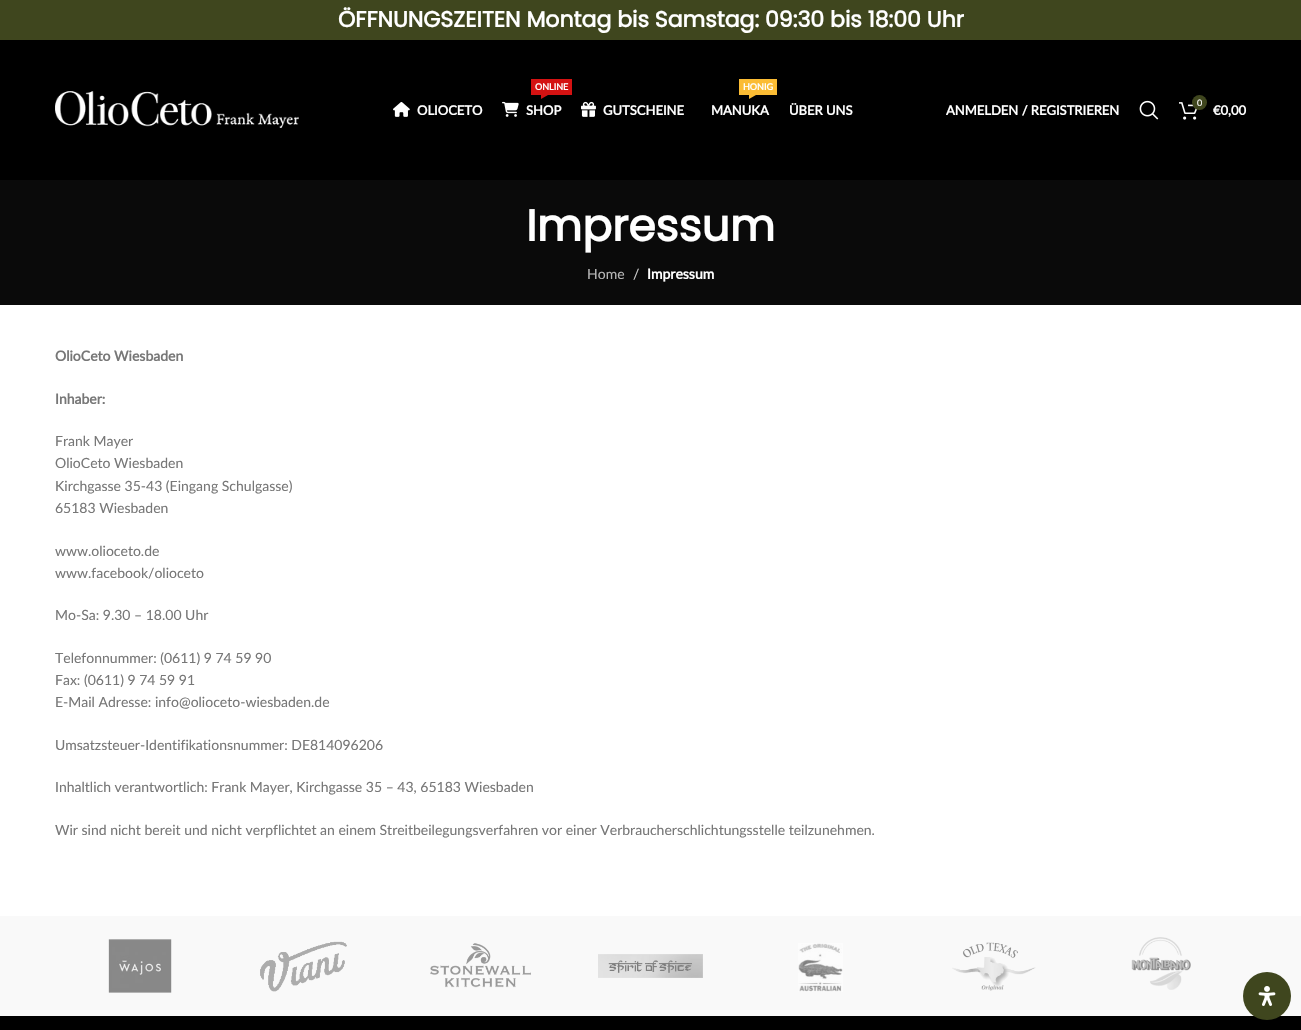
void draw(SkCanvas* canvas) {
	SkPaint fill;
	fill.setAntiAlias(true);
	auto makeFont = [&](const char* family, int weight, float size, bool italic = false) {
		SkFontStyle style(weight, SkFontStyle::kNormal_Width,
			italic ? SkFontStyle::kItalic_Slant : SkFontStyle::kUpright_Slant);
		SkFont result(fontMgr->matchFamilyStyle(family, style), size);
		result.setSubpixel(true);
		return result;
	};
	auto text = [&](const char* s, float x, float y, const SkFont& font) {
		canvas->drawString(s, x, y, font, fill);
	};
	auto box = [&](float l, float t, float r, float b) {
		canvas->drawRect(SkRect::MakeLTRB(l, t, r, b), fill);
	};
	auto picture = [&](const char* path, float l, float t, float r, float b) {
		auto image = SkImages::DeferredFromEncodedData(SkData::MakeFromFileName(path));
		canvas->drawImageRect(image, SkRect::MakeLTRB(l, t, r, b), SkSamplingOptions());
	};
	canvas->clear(0xFFFFFFFF);
	fill.setColor(0xFF3F461E);
	box(0, 0, 1301, 40);
	fill.setColor(0xFF000000);
	box(0, 40, 1301, 180);
	picture("image0.png", 55, 91, 299, 128);
	picture("image1.png", 393, 102, 410, 117);
	fill.setColor(0xFFD41212);
	box(531, 79, 572, 95);
	canvas->drawPath(SkPathBuilder().moveTo(541, 95).lineTo(548, 95).lineTo(541, 99).close().detach(), fill);
	picture("image2.png", 502, 101, 519, 117);
	picture("image3.png", 581, 101, 596, 117);
	fill.setColor(0xFFFBBC34);
	box(739, 79, 777, 95);
	canvas->drawPath(SkPathBuilder().moveTo(749, 95).lineTo(756, 95).lineTo(749, 99).close().detach(), fill);
	picture("image4.png", 1139, 100, 1159, 120);
	picture("image5.png", 1179, 102, 1198, 120);
	fill.setColor(0xFF3F461E);
	canvas->drawCircle(1199.5f, 102.5f, 7.5f, fill);
	fill.setColor(0xFF0A0A0A);
	box(0, 180, 1301, 305);
	fill.setColor(0xFFF9F9F9);
	box(0, 916, 1301, 1016);
	picture("image6.png", 108, 939, 172, 993);
	picture("image7.png", 260, 941, 347, 992);
	picture("image8.png", 430, 943, 531, 988);
	picture("image9.png", 598, 954, 703, 978);
	picture("image10.png", 798, 943, 843, 992);
	picture("image11.png", 952, 942, 1036, 991);
	picture("image12.png", 1131, 937, 1191, 990);
	fill.setColor(0xFF000000);
	box(0, 1016, 1301, 1030);
	fill.setColor(0xFF3F461E);
	canvas->drawCircle(1267, 996, 24, fill);
	picture("image13.png", 1258, 986, 1276, 1006);
	auto font1 = makeFont("Poppins", 700, 22);
	fill.setColor(0xFFFFFFFF);
	text("ÖFFNUNGSZEITEN Montag bis Samstag: 09:30 bis 18:00 Uhr", 338, 27, font1);
	auto font2 = makeFont("Lato", 700, 13);
	text("OLIOCETO", 417, 115, font2);
	auto font3 = makeFont("Lato", 700, 9);
	text("ONLINE", 535, 90, font3);
	text("SHOP", 526, 115, font2);
	text("GUTSCHEINE", 603, 115, font2);
	text("HONIG", 743, 90, font3);
	text("MANUKA", 711, 115, font2);
	text("ÜBER UNS", 789, 115, font2);
	text("ANMELDEN / REGISTRIEREN", 946, 115, font2);
	auto font4 = makeFont("Lato", 400, 9);
	text("0", 1197, 106, font4);
	text("€0,00", 1213, 115, font2);
	auto font5 = makeFont("Poppins", 700, 44);
	text("Impressum", 526, 241, font5);
	auto font6 = makeFont("Lato", 400, 14);
	fill.setColor(0xFFB6B6B6);
	text("Home", 587, 279, font6);
	fill.setColor(0xFFCECECE);
	text("/", 633, 279, font6);
	auto font7 = makeFont("Lato", 700, 14);
	fill.setColor(0xFFFFFFFF);
	text("Impressum", 647, 279, font7);
	fill.setColor(0xFF777777);
	text("OlioCeto Wiesbaden", 55, 361, font7);
	text("Inhaber:", 55, 404, font7);
	text("Frank Mayer", 55, 446, font6);
	text("OlioCeto Wiesbaden", 55, 468, font6);
	text("Kirchgasse 35-43 (Eingang Schulgasse)", 55, 491, font6);
	text("65183 Wiesbaden", 55, 513, font6);
	text("www.olioceto.de", 55, 556, font6);
	text("www.facebook/olioceto", 55, 578, font6);
	text("Mo-Sa: 9.30 – 18.00 Uhr", 55, 620, font6);
	text("Telefonnummer: (0611) 9 74 59 90", 55, 663, font6);
	text("Fax: (0611) 9 74 59 91", 55, 685, font6);
	text("E-Mail Adresse: info@olioceto-wiesbaden.de", 55, 707, font6);
	text("Umsatzsteuer-Identifikationsnummer: DE814096206", 55, 750, font6);
	text("Inhaltlich verantwortlich: Frank Mayer, Kirchgasse 35 – 43, 65183 Wiesbaden", 55, 792, font6);
	text("Wir sind nicht bereit und nicht verpflichtet an einem Streitbeilegungsverfahren vor einer Verbraucherschlichtungsstelle teilzunehmen.", 55, 835, font6);
}
